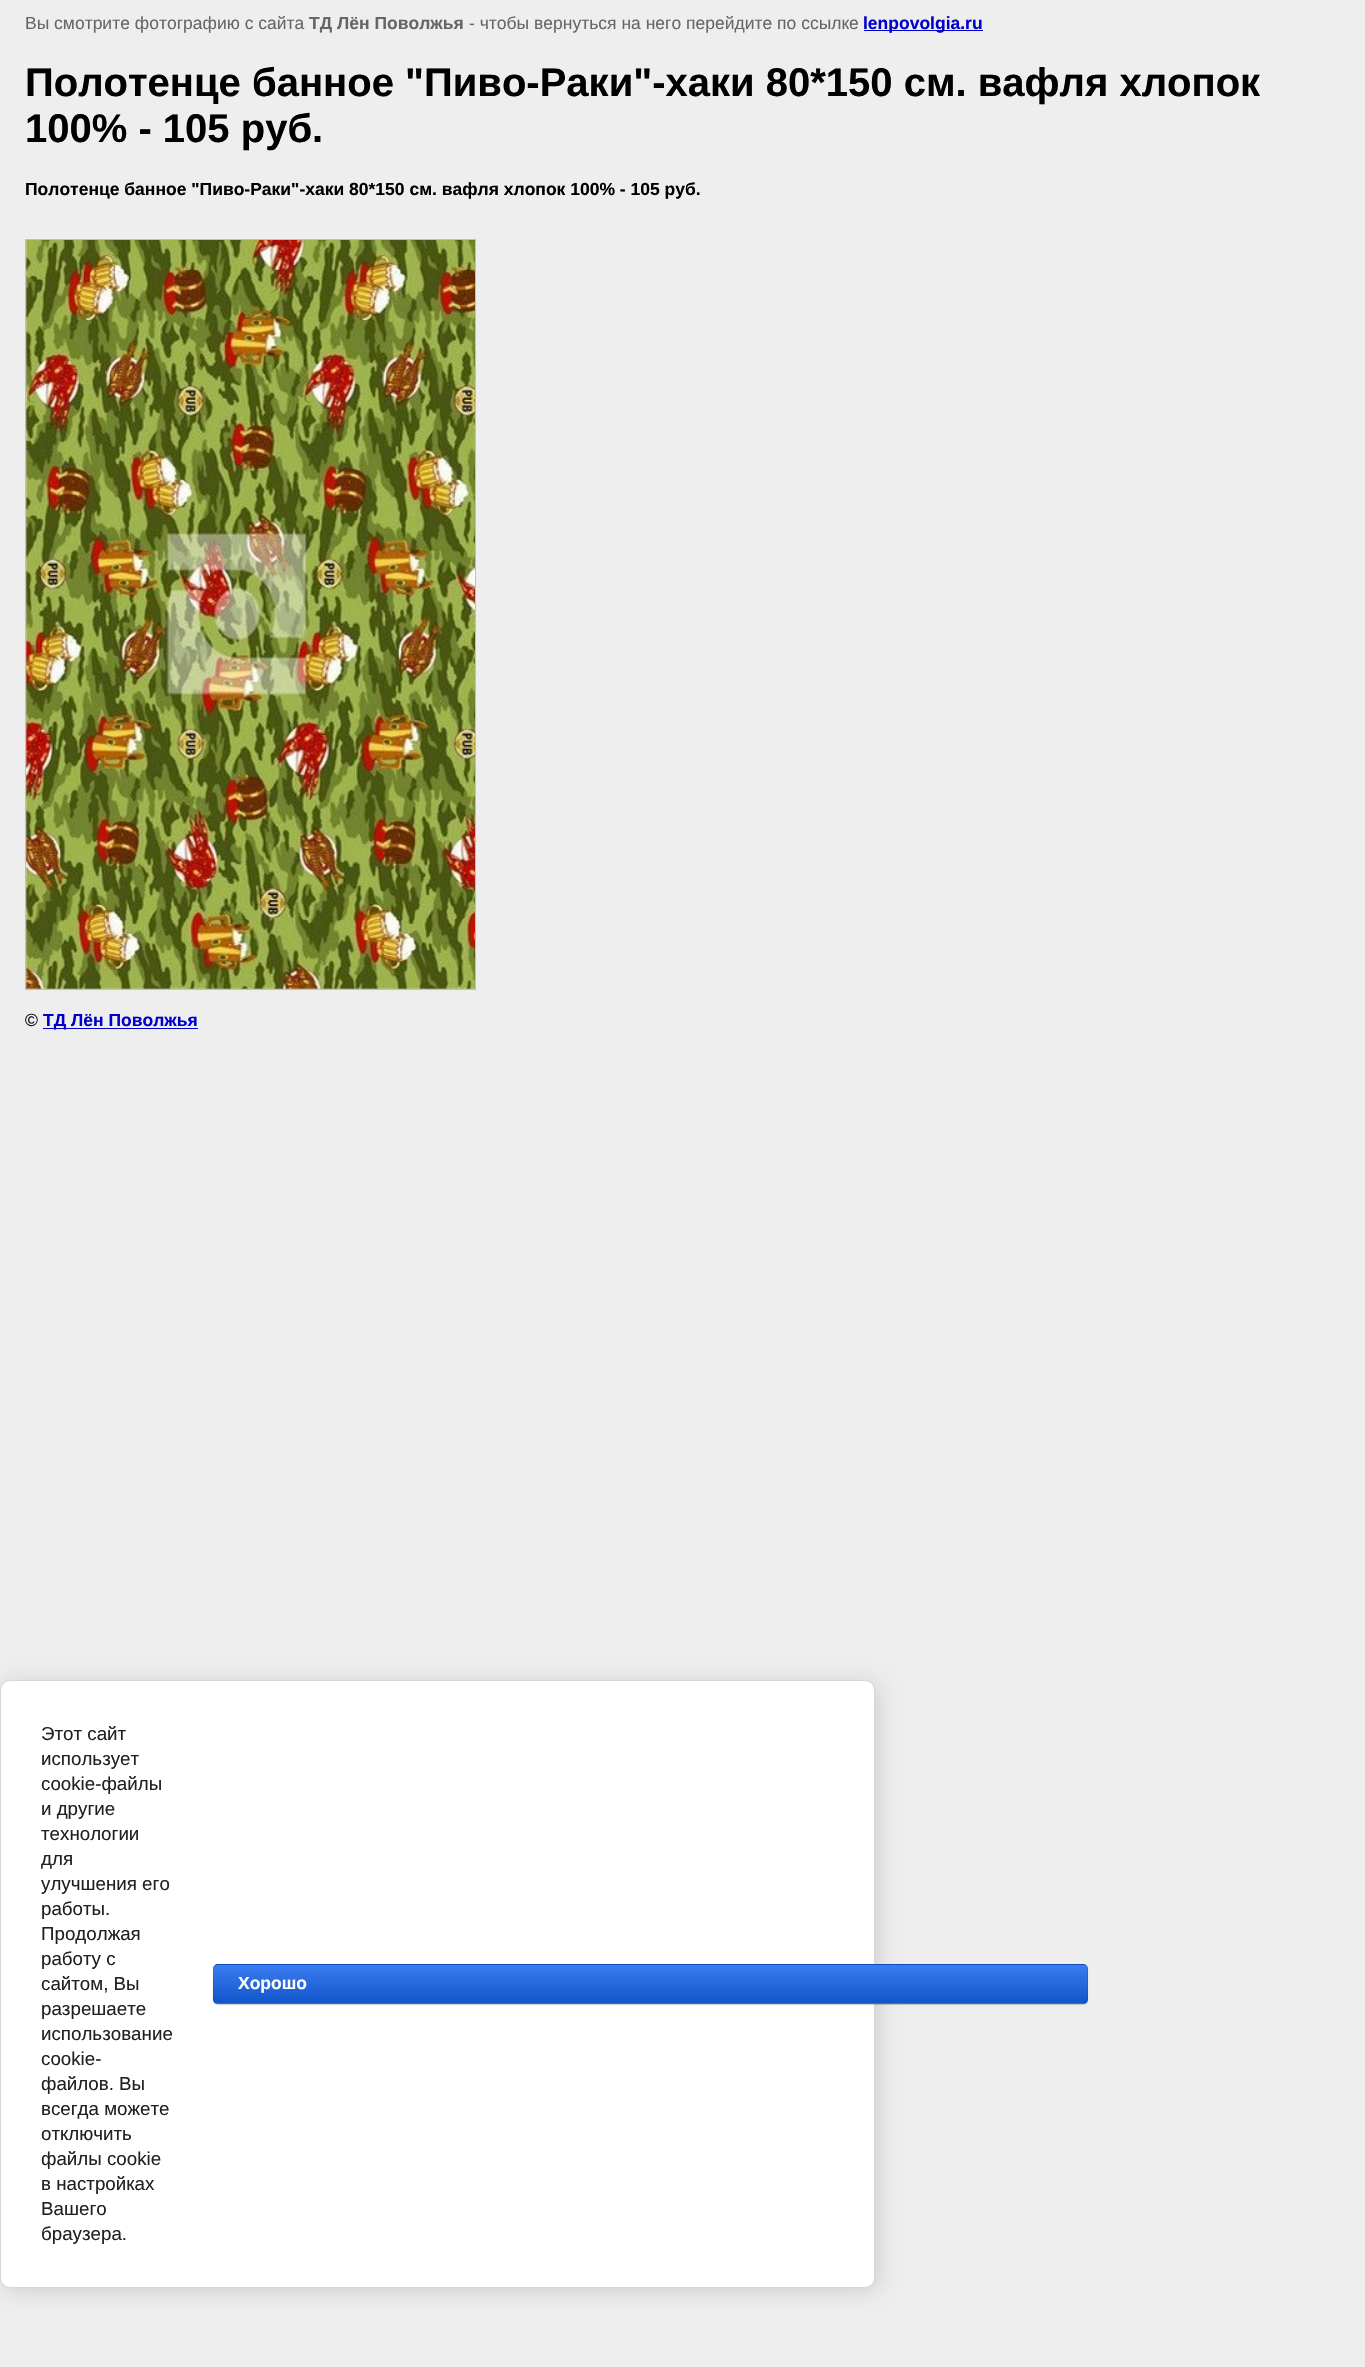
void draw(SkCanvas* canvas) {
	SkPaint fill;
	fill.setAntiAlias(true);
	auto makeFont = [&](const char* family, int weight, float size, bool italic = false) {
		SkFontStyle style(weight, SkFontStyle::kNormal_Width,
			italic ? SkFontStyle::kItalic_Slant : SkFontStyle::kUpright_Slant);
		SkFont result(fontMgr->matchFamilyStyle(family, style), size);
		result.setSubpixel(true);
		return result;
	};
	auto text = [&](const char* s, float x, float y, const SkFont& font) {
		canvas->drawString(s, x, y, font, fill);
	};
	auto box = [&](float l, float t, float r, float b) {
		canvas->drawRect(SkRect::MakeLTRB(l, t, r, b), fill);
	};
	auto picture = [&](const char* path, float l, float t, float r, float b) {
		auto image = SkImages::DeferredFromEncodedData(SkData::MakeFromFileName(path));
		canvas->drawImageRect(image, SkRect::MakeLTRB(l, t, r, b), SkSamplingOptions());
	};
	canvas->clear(0xFFEEEEEE);
	fill.setColor(0xFF0000CC);
	box(864, 30, 983, 31);
	fill.setStyle(SkPaint::kStroke_Style);
	fill.setStrokeWidth(1);
	fill.setColor(0xFFC0C0C0);
	canvas->drawRect(SkRect::MakeLTRB(25.5f, 239.5f, 475.5f, 989.5f), fill);
	picture("image0.png", 26, 240, 475, 989);
	fill.setStyle(SkPaint::kFill_Style);
	fill.setColor(0xFF0000CC);
	box(43, 1028, 198, 1029);
	fill.setColor(0x24000000);
	fill.setMaskFilter(SkMaskFilter::MakeBlur(kNormal_SkBlurStyle, 11));
	canvas->drawRoundRect(SkRect::MakeLTRB(3, 1683, 878, 2290), 10, 10, fill);
	fill.setMaskFilter(nullptr);
	fill.setColor(0xFFFFFFFF);
	canvas->drawRoundRect(SkRect::MakeLTRB(0.5f, 1680.5f, 874.5f, 2287.5f), 9.5f, 9.5f, fill);
	fill.setStyle(SkPaint::kStroke_Style);
	fill.setColor(0xFFD6D6D6);
	canvas->drawRoundRect(SkRect::MakeLTRB(0.5f, 1680.5f, 874.5f, 2287.5f), 9.5f, 9.5f, fill);
	fill.setStyle(SkPaint::kFill_Style);
	fill.setColor(0x33000000);
	fill.setMaskFilter(SkMaskFilter::MakeBlur(kNormal_SkBlurStyle, 0.5f));
	canvas->drawRoundRect(SkRect::MakeLTRB(213, 1965, 1088, 2005), 5, 5, fill);
	fill.setMaskFilter(nullptr);
	canvas->save();
	canvas->clipPath(SkPathBuilder().moveTo(218, 1964).lineTo(1083, 1964).cubicTo(1086, 1964, 1088, 1966, 1088, 1969).lineTo(1088, 1999).cubicTo(1088, 2002, 1086, 2004, 1083, 2004).lineTo(218, 2004).cubicTo(215, 2004, 213, 2002, 213, 1999).lineTo(213, 1969).cubicTo(213, 1966, 215, 1964, 218, 1964).close().detach(), true);
	{
		const SkColor colors[] = {0xFF3B7CEF, 0xFF1155CC};
		const float stops[] = {0, 1};
		const SkPoint ends[] = {{650, 1928}, {650, 1965}};
		fill.setShader(SkGradientShader::MakeLinear(ends, colors, stops, 2, SkTileMode::kClamp));
		fill.setAlpha(255);
	}
	box(213, 1964, 1088, 1965);
	{
		const SkColor colors[] = {0xFF3B7CEF, 0xFF1155CC};
		const float stops[] = {0, 1};
		const SkPoint ends[] = {{650, 1965}, {650, 2003}};
		fill.setShader(SkGradientShader::MakeLinear(ends, colors, stops, 2, SkTileMode::kClamp));
		fill.setAlpha(255);
	}
	box(213, 1965, 1088, 2003);
	{
		const SkColor colors[] = {0xFF3B7CEF, 0xFF1155CC};
		const float stops[] = {0, 1};
		const SkPoint ends[] = {{650, 2003}, {650, 2040}};
		fill.setShader(SkGradientShader::MakeLinear(ends, colors, stops, 2, SkTileMode::kClamp));
		fill.setAlpha(255);
	}
	box(213, 2003, 1088, 2004);
	canvas->restore();
	fill.setStyle(SkPaint::kStroke_Style);
	fill.setShader(nullptr);
	fill.setColor(0x1A000000);
	canvas->drawRoundRect(SkRect::MakeLTRB(213.5f, 1964.5f, 1087.5f, 2003.5f), 4.5f, 4.5f, fill);
	auto font1 = makeFont("Liberation Sans", 400, 17.5f);
	fill.setStyle(SkPaint::kFill_Style);
	fill.setColor(0xFF666666);
	text("Вы смотрите фотографию с сайта", 25, 29, font1);
	auto font2 = makeFont("Liberation Sans", 700, 17.5f);
	text("ТД Лён Поволжья", 309, 29, font2);
	text("- чтобы вернуться на него перейдите по ссылке", 469, 29, font1);
	fill.setColor(0xFF0000CC);
	text("lenpovolgia.ru", 863, 29, font2);
	auto font3 = makeFont("Liberation Sans", 700, 40);
	fill.setColor(0xFF000000);
	text("Полотенце банное \"Пиво-Раки\"-хаки 80*150 см. вафля хлопок", 25, 96, font3);
	text("100% - 105 руб.", 25, 142, font3);
	text("Полотенце банное \"Пиво-Раки\"-хаки 80*150 см. вафля хлопок 100% - 105 руб.", 25, 195, font2);
	text("©", 25, 1026, font1);
	fill.setColor(0xFF0000CC);
	text("ТД Лён Поволжья", 43, 1026, font2);
	auto font4 = makeFont("Liberation Sans", 400, 18.75f);
	fill.setColor(0xFF212121);
	text("Этот сайт", 41, 1740, font4);
	text("использует", 41, 1765, font4);
	text("cookie-файлы", 41, 1790, font4);
	text("и другие", 41, 1815, font4);
	text("технологии", 41, 1840, font4);
	text("для", 41, 1865, font4);
	text("улучшения его", 41, 1890, font4);
	text("работы.", 41, 1915, font4);
	text("Продолжая", 41, 1940, font4);
	text("работу с", 41, 1965, font4);
	text("сайтом, Вы", 41, 1990, font4);
	text("разрешаете", 41, 2015, font4);
	text("использование", 41, 2040, font4);
	text("cookie-", 41, 2065, font4);
	text("файлов. Вы", 41, 2090, font4);
	text("всегда можете", 41, 2115, font4);
	text("отключить", 41, 2140, font4);
	text("файлы cookie", 41, 2165, font4);
	text("в настройках", 41, 2190, font4);
	text("Вашего", 41, 2215, font4);
	text("браузера.", 41, 2240, font4);
	fill.setColor(0xFFFFFFFF);
	text("Хорошо", 238, 1989, font2);
}
